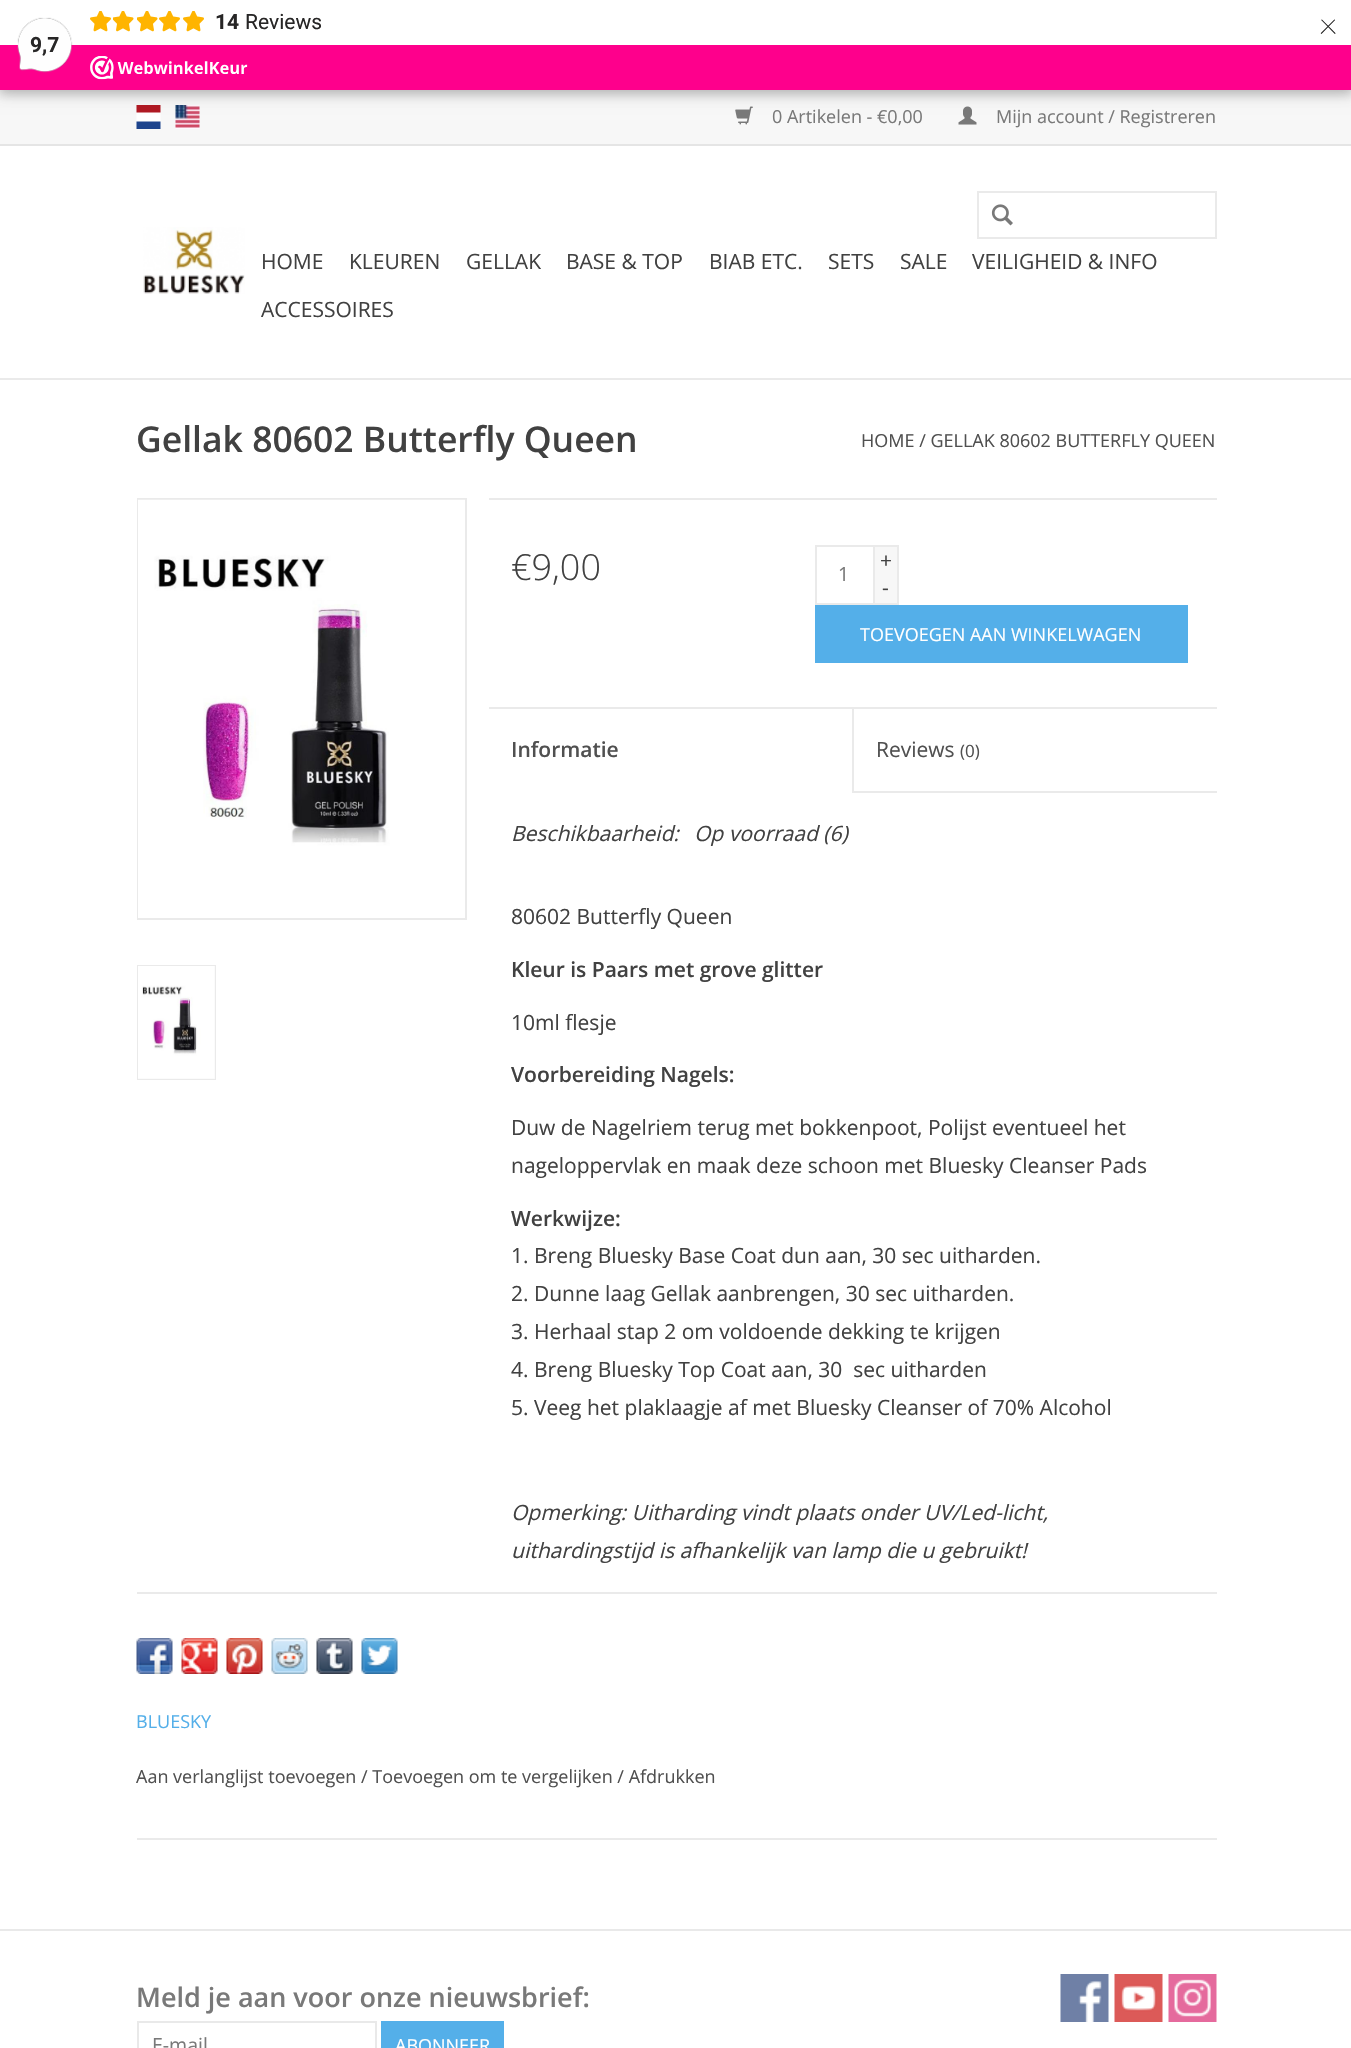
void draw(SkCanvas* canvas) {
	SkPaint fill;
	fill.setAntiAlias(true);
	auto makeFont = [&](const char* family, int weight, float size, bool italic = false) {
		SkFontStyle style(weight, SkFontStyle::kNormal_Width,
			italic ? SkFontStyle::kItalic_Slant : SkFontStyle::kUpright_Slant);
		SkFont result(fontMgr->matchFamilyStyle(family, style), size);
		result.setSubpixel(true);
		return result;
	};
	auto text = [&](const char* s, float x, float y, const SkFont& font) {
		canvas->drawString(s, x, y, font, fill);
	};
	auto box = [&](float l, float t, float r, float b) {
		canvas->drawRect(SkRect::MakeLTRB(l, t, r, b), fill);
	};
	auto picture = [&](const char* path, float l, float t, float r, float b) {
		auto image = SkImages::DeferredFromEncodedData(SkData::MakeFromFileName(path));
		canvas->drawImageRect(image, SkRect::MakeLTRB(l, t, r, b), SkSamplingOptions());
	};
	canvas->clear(0xFFFFFFFF);
	fill.setColor(0xFFF7F7F7);
	box(0, 90, 1351, 144);
	picture("image4.png", 136, 105, 161, 129);
	picture("image5.png", 175, 105, 200, 129);
	picture("image6.png", 735, 106, 753, 125);
	picture("image7.png", 958, 106, 977, 125);
	fill.setColor(0x26000000);
	fill.setMaskFilter(SkMaskFilter::MakeBlur(kNormal_SkBlurStyle, 4.5f));
	canvas->drawRect(SkRect::MakeLTRB(-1, -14, 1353, 95), fill);
	fill.setMaskFilter(nullptr);
	fill.setMaskFilter(SkMaskFilter::MakeBlur(kNormal_SkBlurStyle, 7.5f));
	canvas->drawRect(SkRect::MakeLTRB(0, 3, 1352, 93), fill);
	fill.setMaskFilter(nullptr);
	fill.setColor(0xFFFFFFFF);
	box(0, 0, 1351, 45);
	picture("image0.png", 90, 11, 111, 32);
	picture("image1.png", 113, 11, 134, 32);
	picture("image1.png", 137, 11, 158, 32);
	picture("image0.png", 159, 11, 180, 32);
	picture("image0.png", 183, 11, 204, 32);
	fill.setColor(0xFFFE008C);
	box(0, 45, 1351, 90);
	picture("image2.png", 17, 17, 73, 73);
	picture("image3.png", 90, 56, 248, 80);
	fill.setColor(0xFFEAEAEA);
	box(0, 378, 1351, 380);
	fill.setColor(0xFFE5E5E5);
	box(0, 144, 1351, 146);
	picture("image8.png", 143, 227, 245, 294);
	fill.setStyle(SkPaint::kStroke_Style);
	fill.setStrokeWidth(2);
	fill.setColor(0xFFEAEAEA);
	canvas->drawRect(SkRect::MakeLTRB(978, 192, 1216, 238), fill);
	picture("image9.png", 991, 204, 1013, 226);
	canvas->drawRect(SkRect::MakeLTRB(138, 499, 466, 919), fill);
	picture("image10.png", 138, 499, 465, 918);
	canvas->drawRect(SkRect::MakeLTRB(138, 966, 215, 1079), fill);
	fill.setStyle(SkPaint::kFill_Style);
	fill.setColor(0xFFF7F7F7);
	box(138, 966, 215, 1079);
	picture("image11.png", 138, 966, 215, 1079);
	fill.setColor(0xFFEAEAEA);
	box(489, 498, 1217, 500);
	fill.setStyle(SkPaint::kStroke_Style);
	canvas->drawRect(SkRect::MakeLTRB(816, 546, 874, 604), fill);
	fill.setStyle(SkPaint::kFill_Style);
	fill.setColor(0xFFF7F7F7);
	box(875, 547, 897, 603);
	fill.setColor(0xFFEAEAEA);
	box(875, 545, 899, 547);
	box(897, 545, 899, 605);
	box(875, 603, 899, 605);
	fill.setColor(0xFF54AFE9);
	box(815, 605, 1188, 663);
	fill.setColor(0xFFEAEAEA);
	box(489, 707, 1217, 709);
	box(852, 791, 1217, 793);
	box(852, 708, 854, 792);
	box(137, 1592, 1217, 1594);
	box(137, 1838, 1217, 1840);
	picture("image12.png", 136, 1638, 173, 1674);
	picture("image13.png", 181, 1638, 218, 1674);
	picture("image14.png", 226, 1638, 263, 1674);
	picture("image15.png", 271, 1638, 308, 1674);
	picture("image16.png", 316, 1638, 353, 1674);
	picture("image17.png", 361, 1638, 398, 1674);
	fill.setColor(0xFFE9E9E9);
	box(0, 1929, 1351, 1931);
	fill.setStyle(SkPaint::kStroke_Style);
	canvas->drawRect(SkRect::MakeLTRB(138, 2022, 376, 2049), fill);
	fill.setStyle(SkPaint::kFill_Style);
	fill.setColor(0xFF54AFE9);
	box(381, 2021, 504, 2048);
	picture("image18.png", 1060, 1974, 1109, 2022);
	picture("image19.png", 1114, 1974, 1163, 2022);
	picture("image20.png", 1168, 1974, 1217, 2022);
	auto font1 = makeFont("Roboto", 700, 21);
	fill.setColor(0xFF272626);
	text("14", 215, 29, font1);
	auto font2 = makeFont("Roboto", 400, 21);
	text("Reviews", 245, 29, font2);
	auto font3 = makeFont("Roboto", 100, 36);
	text("×", 1319, 34, font3);
	text("9,7", 30, 52, font1);
	auto font4 = makeFont("Open Sans", 400, 18);
	fill.setColor(0xFF797979);
	text("0 Artikelen - €0,00", 772, 123, font4);
	text("Mijn account / Registreren", 996, 123, font4);
	auto font5 = makeFont("Open Sans", 400, 21);
	fill.setColor(0xFF414141);
	text("HOME", 261, 269, font5);
	text("KLEUREN", 349, 269, font5);
	text("GELLAK", 466, 269, font5);
	text("BASE & TOP", 566, 269, font5);
	text("BIAB ETC.", 709, 269, font5);
	text("SETS", 828, 269, font5);
	text("SALE", 900, 269, font5);
	text("VEILIGHEID & INFO", 972, 269, font5);
	text("ACCESSOIRES", 261, 317, font5);
	auto font6 = makeFont("Open Sans", 600, 35.5f);
	text("Gellak 80602 Butterfly Queen", 136, 452, font6);
	fill.setColor(0xFF505050);
	text("HOME / GELLAK 80602 BUTTERFLY QUEEN", 861, 447, font4);
	auto font7 = makeFont("Open Sans", 300, 36);
	fill.setColor(0xFF414141);
	text("€9,00", 511, 580, font7);
	auto font8 = makeFont("Open Sans", 400, 19.5f);
	fill.setColor(0xFF797979);
	text("1", 838, 581, font8);
	fill.setColor(0xFF414141);
	text("+", 880, 568, font5);
	text("-", 882, 595, font5);
	fill.setColor(0xFFFFFFFF);
	text("TOEVOEGEN AAN WINKELWAGEN", 860, 641, font4);
	auto font9 = makeFont("Open Sans", 600, 21);
	fill.setColor(0xFF505050);
	text("Informatie", 511, 757, font9);
	text("Reviews", 876, 757, font5);
	auto font10 = makeFont("Open Sans", 400, 17);
	text("(0)", 960, 757, font10);
	auto font11 = makeFont("Open Sans", 400, 21, true);
	fill.setColor(0xFF414141);
	text("Beschikbaarheid:", 511, 841, font11);
	text("Op voorraad (6)", 694, 841, font11);
	text("80602 Butterfly Queen", 511, 924, font5);
	text("Kleur is Paars met grove glitter", 511, 977, font9);
	text("10ml flesje", 511, 1030, font5);
	text("Voorbereiding Nagels:", 511, 1082, font9);
	text("Duw de Nagelriem terug met bokkenpoot, Polijst eventueel het", 511, 1135, font5);
	text("nageloppervlak en maak deze schoon met Bluesky Cleanser Pads", 511, 1173, font5);
	text("Werkwijze:", 511, 1226, font9);
	text("1. Breng Bluesky Base Coat dun aan, 30 sec uitharden.", 511, 1263, font5);
	text("2. Dunne laag Gellak aanbrengen, 30 sec uitharden.", 511, 1301, font5);
	text("3. Herhaal stap 2 om voldoende dekking te krijgen", 511, 1339, font5);
	text("4. Breng Bluesky Top Coat aan, 30  sec uitharden", 511, 1377, font5);
	text("5. Veeg het plaklaagje af met Bluesky Cleanser of 70% Alcohol", 511, 1415, font5);
	text("Opmerking: Uitharding vindt plaats onder UV/Led-licht,", 511, 1520, font11);
	text("uithardingstijd is afhankelijk van lamp die u gebruikt!", 511, 1558, font11);
	fill.setColor(0xFF54AFE9);
	text("BLUESKY", 136, 1728, font4);
	fill.setColor(0xFF505050);
	text("Aan verlanglijst toevoegen / Toevoegen om te vergelijken / Afdrukken", 136, 1783, font4);
	auto font12 = makeFont("Open Sans", 600, 27);
	fill.setColor(0xFF797979);
	text("Meld je aan voor onze nieuwsbrief:", 136, 2007, font12);
	text("E-mail", 152, 2052, font8);
	fill.setColor(0xFFFFFFFF);
	text("ABONNEER", 395, 2052, font4);
}
